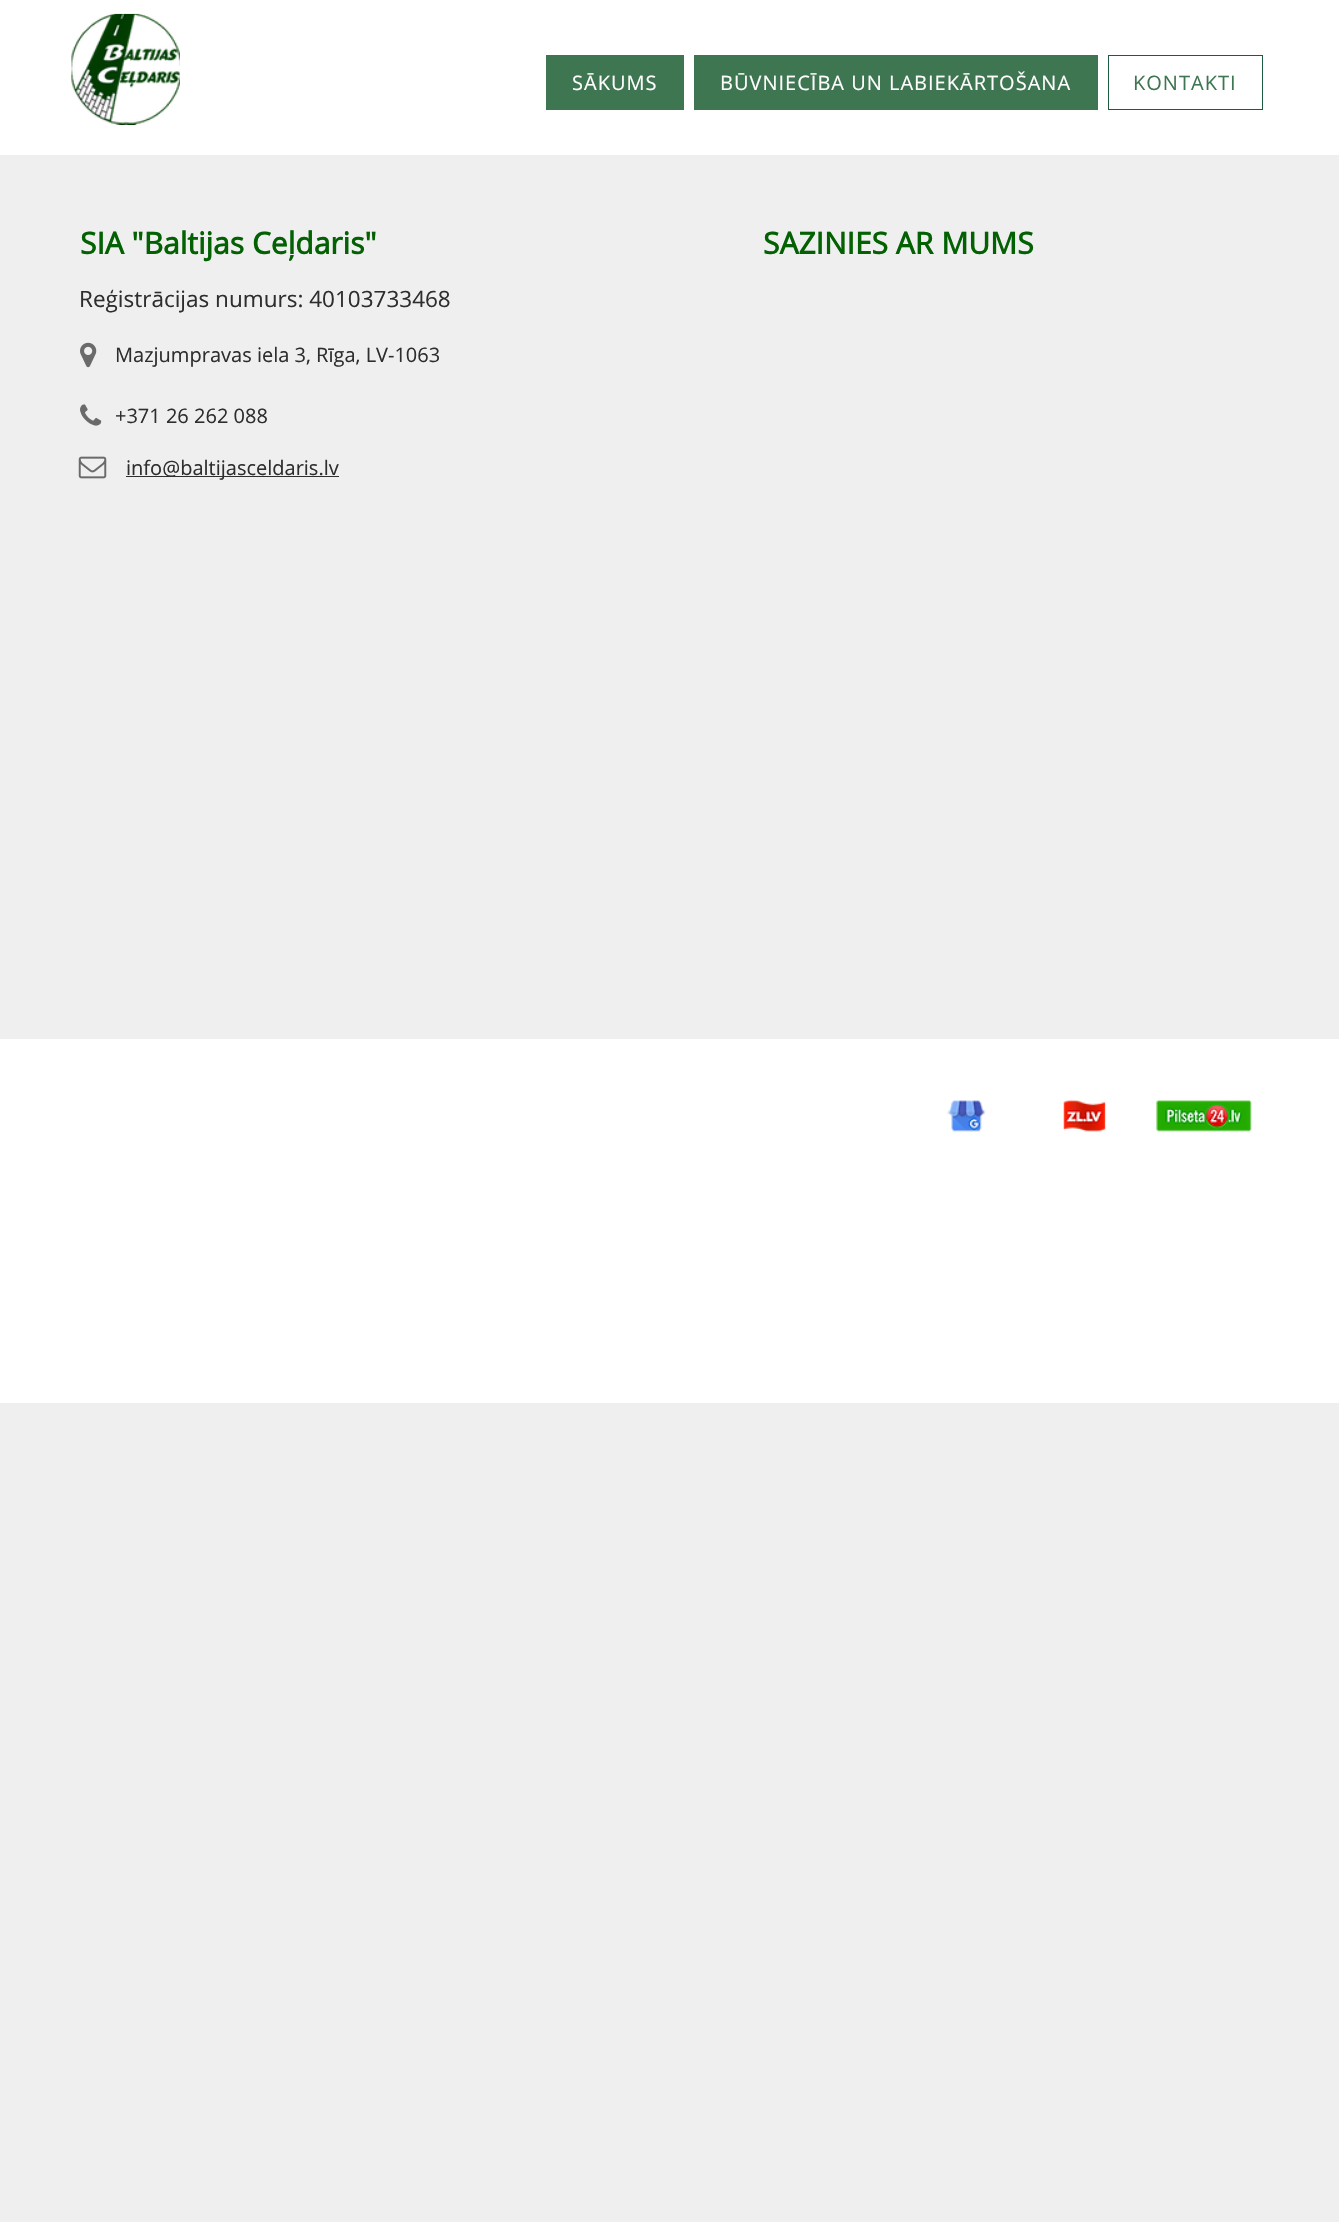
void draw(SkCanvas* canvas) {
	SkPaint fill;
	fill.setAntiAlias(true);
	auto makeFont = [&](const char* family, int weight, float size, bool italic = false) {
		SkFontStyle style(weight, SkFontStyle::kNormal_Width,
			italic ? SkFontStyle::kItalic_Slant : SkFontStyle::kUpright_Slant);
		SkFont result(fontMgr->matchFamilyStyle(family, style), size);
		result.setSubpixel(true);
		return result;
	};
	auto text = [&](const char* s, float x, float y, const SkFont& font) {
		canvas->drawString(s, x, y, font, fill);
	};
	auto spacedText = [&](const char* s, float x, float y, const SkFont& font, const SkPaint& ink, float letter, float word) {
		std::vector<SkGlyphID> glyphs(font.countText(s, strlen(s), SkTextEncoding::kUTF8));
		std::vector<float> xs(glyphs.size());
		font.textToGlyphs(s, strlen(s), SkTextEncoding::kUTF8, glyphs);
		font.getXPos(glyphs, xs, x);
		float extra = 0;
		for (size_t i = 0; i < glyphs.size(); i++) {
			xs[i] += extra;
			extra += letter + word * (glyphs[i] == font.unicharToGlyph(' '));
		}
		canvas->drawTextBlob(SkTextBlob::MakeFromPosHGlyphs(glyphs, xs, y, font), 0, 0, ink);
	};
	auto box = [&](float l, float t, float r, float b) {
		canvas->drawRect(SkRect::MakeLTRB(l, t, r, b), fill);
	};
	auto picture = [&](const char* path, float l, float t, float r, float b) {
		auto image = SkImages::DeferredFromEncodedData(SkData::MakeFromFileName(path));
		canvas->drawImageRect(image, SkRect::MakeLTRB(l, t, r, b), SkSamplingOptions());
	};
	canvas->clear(0xFFEFEFEF);
	fill.setColor(0xFFFFFFFF);
	box(0, 0, 1339, 155);
	picture("image0.png", 71, 13, 180, 125);
	fill.setColor(0xFF3F7652);
	box(546, 55, 684, 110);
	box(694, 55, 1098, 110);
	fill.setStyle(SkPaint::kStroke_Style);
	fill.setStrokeWidth(1);
	fill.setColor(0xFF1B5B3F);
	canvas->drawRect(SkRect::MakeLTRB(1108.5f, 55.5f, 1262.5f, 109.5f), fill);
	picture("image1.png", 80, 342, 97, 368);
	picture("image2.png", 80, 404, 102, 426);
	picture("image3.png", 78, 456, 107, 479);
	fill.setStyle(SkPaint::kFill_Style);
	fill.setColor(0xFF2F2E2E);
	box(126, 476, 339, 477);
	fill.setColor(0xFFFFFFFF);
	box(0, 1039, 1339, 1403);
	picture("image4.png", 947, 1100, 986, 1132);
	picture("image5.png", 1063, 1100, 1106, 1132);
	picture("image6.png", 1156, 1100, 1252, 1132);
	auto font1 = makeFont("Open Sans", 400, 20);
	spacedText("SĀKUMS", 572, 90, font1, fill, 1, 0);
	spacedText("BŪVNIECĪBA UN LABIEKĀRTOŠANA", 720, 90, font1, fill, 1, 0);
	fill.setColor(0xFF3F7652);
	spacedText("KONTAKTI", 1133, 90, font1, fill, 1, 0);
	auto font2 = makeFont("Open Sans", 700, 30);
	fill.setColor(0xFF036103);
	text("SIA \"Baltijas Ceļdaris\"", 80, 254, font2);
	text("SAZINIES AR MUMS", 763, 254, font2);
	auto font3 = makeFont("Open Sans", 400, 22.5f);
	fill.setColor(0xFF2F2E2E);
	text("Reģistrācijas numurs: 40103733468", 79, 307, font3);
	text("Mazjumpravas iela 3, Rīga, LV-1063", 115, 362, font1);
	text("+371 26 262 088", 115, 423, font1);
	text("info@baltijasceldaris.lv", 126, 475, font1);
}
